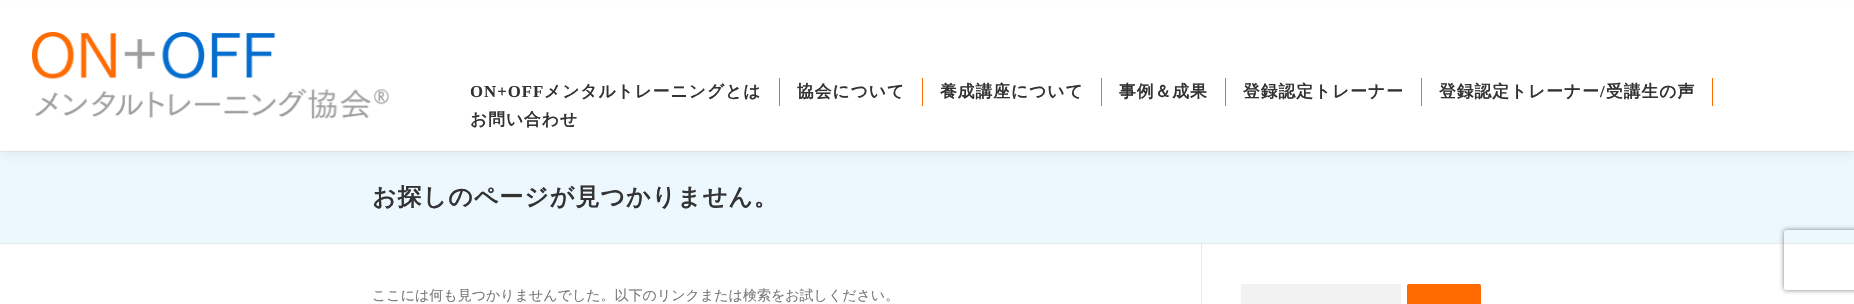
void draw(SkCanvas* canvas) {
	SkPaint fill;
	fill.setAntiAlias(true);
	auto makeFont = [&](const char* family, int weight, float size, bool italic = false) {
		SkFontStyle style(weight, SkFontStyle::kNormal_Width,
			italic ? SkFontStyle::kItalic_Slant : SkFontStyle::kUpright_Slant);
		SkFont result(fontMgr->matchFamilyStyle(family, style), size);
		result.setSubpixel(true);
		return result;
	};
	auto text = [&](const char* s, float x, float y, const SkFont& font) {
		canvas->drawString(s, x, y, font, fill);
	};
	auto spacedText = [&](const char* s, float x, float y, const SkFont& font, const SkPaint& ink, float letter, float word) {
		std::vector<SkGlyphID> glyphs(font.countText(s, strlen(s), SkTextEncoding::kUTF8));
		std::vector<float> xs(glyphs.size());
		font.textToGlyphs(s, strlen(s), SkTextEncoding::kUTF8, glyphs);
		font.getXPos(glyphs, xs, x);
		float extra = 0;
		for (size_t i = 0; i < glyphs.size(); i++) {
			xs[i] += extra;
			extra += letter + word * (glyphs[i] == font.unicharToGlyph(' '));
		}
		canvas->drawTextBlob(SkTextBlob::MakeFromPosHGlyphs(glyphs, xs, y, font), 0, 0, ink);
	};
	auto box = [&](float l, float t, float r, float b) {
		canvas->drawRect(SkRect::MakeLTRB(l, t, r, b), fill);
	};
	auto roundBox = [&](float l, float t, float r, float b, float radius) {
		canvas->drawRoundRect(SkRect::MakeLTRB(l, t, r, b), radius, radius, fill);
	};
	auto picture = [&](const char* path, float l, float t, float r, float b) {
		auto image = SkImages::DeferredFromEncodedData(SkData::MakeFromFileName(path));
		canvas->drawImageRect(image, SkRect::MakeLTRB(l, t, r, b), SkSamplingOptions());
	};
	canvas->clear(0xFFFFFFFF);
	fill.setColor(0xFFE9E9E9);
	box(0, 151, 1854, 152);
	fill.setColor(0xFFECF8FE);
	box(0, 152, 1854, 243);
	fill.setColor(0x0F323232);
	fill.setMaskFilter(SkMaskFilter::MakeBlur(kNormal_SkBlurStyle, 5));
	canvas->drawRect(SkRect::MakeLTRB(0, 5, 1854, 156), fill);
	fill.setMaskFilter(nullptr);
	fill.setColor(0xFFFFFFFF);
	box(0, 1, 1854, 151);
	picture("image0.png", 32, 32, 389, 119);
	fill.setColor(0xFFFF6B00);
	box(779, 78, 780, 106);
	box(922, 78, 923, 106);
	box(1101, 78, 1102, 106);
	box(1225, 78, 1226, 106);
	box(1421, 78, 1422, 106);
	box(1712, 78, 1713, 106);
	fill.setColor(0xFFE9E9E9);
	box(0, 243, 1854, 244);
	box(1201, 244, 1202, 304);
	fill.setColor(0xFFF2F2F2);
	box(1241, 284, 1401, 304);
	fill.setColor(0xFFFF6B00);
	roundBox(1407, 284, 1481, 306, 2);
	canvas->save();
	canvas->clipPath(SkPathBuilder(SkPathFillType::kEvenOdd).moveTo(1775, 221).lineTo(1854, 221).lineTo(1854, 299).lineTo(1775, 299).close().moveTo(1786, 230).lineTo(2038, 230).cubicTo(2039, 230, 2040, 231, 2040, 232).lineTo(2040, 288).cubicTo(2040, 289, 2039, 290, 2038, 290).lineTo(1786, 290).cubicTo(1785, 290, 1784, 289, 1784, 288).lineTo(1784, 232).cubicTo(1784, 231, 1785, 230, 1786, 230).close().detach(), true);
	fill.setColor(0xFF808080);
	fill.setMaskFilter(SkMaskFilter::MakeBlur(kNormal_SkBlurStyle, 2.5f));
	canvas->drawRoundRect(SkRect::MakeLTRB(1784, 230, 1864, 290), 2, 2, fill);
	fill.setMaskFilter(nullptr);
	canvas->restore();
	auto font1 = makeFont("Liberation Serif", 700, 16.75f);
	fill.setColor(0xFF333333);
	spacedText("ON+OFF", 470, 97, font1, fill, 1, 0);
	auto font2 = makeFont("WenQuanYi Zen Hei", 700, 16.75f);
	spacedText("メンタルトレーニングとは", 544, 97, font2, fill, 1, 0);
	spacedText("協会について", 797, 97, font2, fill, 1, 0);
	spacedText("養成講座について", 940, 97, font2, fill, 1, 0);
	spacedText("事例＆成果", 1119, 97, font2, fill, 1, 0);
	spacedText("登録認定トレーナー", 1243, 97, font2, fill, 1, 0);
	spacedText("登録認定トレーナー", 1439, 97, font2, fill, 1, 0);
	spacedText("/", 1600, 97, font1, fill, 1, 0);
	spacedText("受講生の声", 1606, 97, font2, fill, 1, 0);
	spacedText("お問い合わせ", 470, 125, font2, fill, 1, 0);
	auto font3 = makeFont("WenQuanYi Zen Hei", 700, 24);
	spacedText("お探しのページが見つかりません。", 372, 205, font3, fill, 1, 0);
	auto font4 = makeFont("WenQuanYi Zen Hei", 500, 14);
	fill.setColor(0xFF777777);
	text("ここには何も見つかりませんでした。以下のリンクまたは検索をお試しください。", 372, 300, font4);
}
